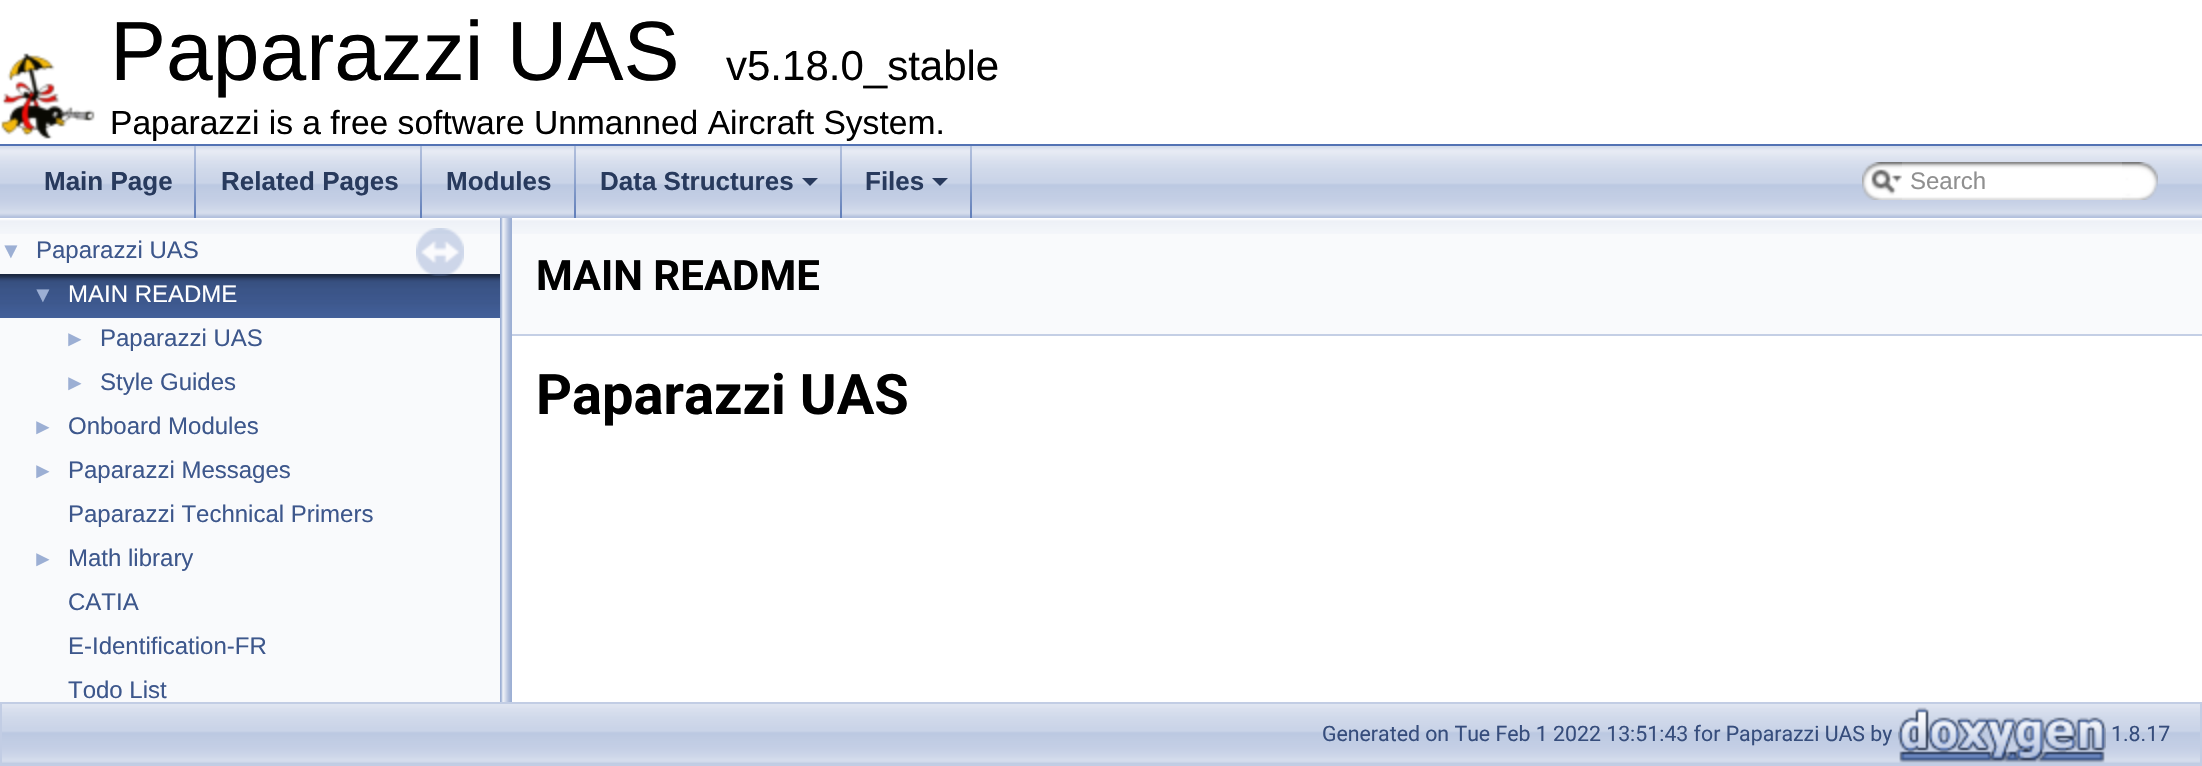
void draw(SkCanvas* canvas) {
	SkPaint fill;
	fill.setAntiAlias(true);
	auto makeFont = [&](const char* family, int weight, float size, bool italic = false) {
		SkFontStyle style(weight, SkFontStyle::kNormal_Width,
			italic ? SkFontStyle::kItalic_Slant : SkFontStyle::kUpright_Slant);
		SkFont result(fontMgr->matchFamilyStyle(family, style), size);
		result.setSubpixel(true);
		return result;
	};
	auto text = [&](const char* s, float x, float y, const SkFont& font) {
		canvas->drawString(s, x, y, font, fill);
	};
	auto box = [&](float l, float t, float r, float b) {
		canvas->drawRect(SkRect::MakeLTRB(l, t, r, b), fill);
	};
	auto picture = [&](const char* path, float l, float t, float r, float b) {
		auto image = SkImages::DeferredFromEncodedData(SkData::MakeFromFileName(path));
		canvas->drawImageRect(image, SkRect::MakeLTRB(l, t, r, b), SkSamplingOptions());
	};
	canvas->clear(0xFFFFFFFF);
	fill.setColor(0xFF5373B4);
	box(0, 144, 2202, 146);
	picture("image0.png", 1, 53, 95, 139);
	picture("image1.png", 0, 146, 2202, 218);
	picture("image2.png", 194, 146, 196, 218);
	picture("image2.png", 420, 146, 422, 218);
	picture("image2.png", 574, 146, 576, 218);
	picture("image2.png", 840, 146, 842, 218);
	fill.setColor(0xFF283A5D);
	canvas->drawPath(SkPathBuilder().moveTo(802, 178).lineTo(818, 178).lineTo(810, 186).close().detach(), fill);
	picture("image2.png", 970, 146, 972, 218);
	canvas->drawPath(SkPathBuilder().moveTo(932, 178).lineTo(948, 178).lineTo(940, 186).close().detach(), fill);
	picture("image3.png", 1862, 162, 1902, 200);
	picture("image4.png", 1871, 169, 1902, 195);
	picture("image5.png", 1902, 162, 2122, 200);
	picture("image6.png", 2122, 162, 2158, 200);
	fill.setColor(0xFFF9FAFC);
	box(0, 234, 500, 702);
	picture("image7.png", 0, 218, 500, 234);
	picture("image8.png", 0, 274, 500, 318);
	picture("image9.png", 416, 228, 464, 276);
	picture("image10.png", 500, 218, 512, 702);
	box(512, 234, 2202, 334);
	picture("image11.png", 512, 218, 2202, 234);
	fill.setColor(0xFFC4CFE5);
	box(512, 334, 2202, 336);
	picture("image12.png", 2, 704, 2200, 764);
	fill.setStyle(SkPaint::kStroke_Style);
	fill.setStrokeWidth(2);
	fill.setColor(0xFFC2CDE4);
	canvas->drawRect(SkRect::MakeLTRB(1, 703, 2201, 765), fill);
	picture("image13.png", 1898, 707, 2106, 763);
	auto font1 = makeFont("Liberation Sans", 400, 84);
	fill.setStyle(SkPaint::kFill_Style);
	fill.setColor(0xFF000000);
	text("Paparazzi UAS", 110, 80, font1);
	auto font2 = makeFont("Liberation Sans", 400, 42);
	text("v5.18.0_stable", 726, 80, font2);
	auto font3 = makeFont("Liberation Sans", 400, 33.6f);
	text("Paparazzi is a free software Unmanned Aircraft System.", 110, 134, font3);
	auto font4 = makeFont("Liberation Sans", 700, 26);
	fill.setColor(0xFF283A5D);
	text("Main Page", 44, 190, font4);
	text("Related Pages", 221, 190, font4);
	text("Modules", 446, 190, font4);
	text("Data Structures", 600, 190, font4);
	text("Files", 865, 190, font4);
	auto font5 = makeFont("Liberation Sans", 400, 24);
	fill.setColor(0xFF909090);
	text("Search", 1910, 189, font5);
	auto font6 = makeFont("Liberation Sans", 400, 22);
	fill.setColor(0xFF9CAFD4);
	text("▼", 0, 258, font6);
	fill.setColor(0xFF3D578C);
	text("Paparazzi UAS", 36, 258, font5);
	fill.setColor(0xFF9CAFD4);
	text("▼", 32, 302, font6);
	fill.setColor(0xFFFFFFFF);
	text("MAIN README", 68, 302, font5);
	fill.setColor(0xFF9CAFD4);
	text("►", 64, 346, font6);
	fill.setColor(0xFF3D578C);
	text("Paparazzi UAS", 100, 346, font5);
	fill.setColor(0xFF9CAFD4);
	text("►", 64, 390, font6);
	fill.setColor(0xFF3D578C);
	text("Style Guides", 100, 390, font5);
	fill.setColor(0xFF9CAFD4);
	text("►", 32, 434, font6);
	fill.setColor(0xFF3D578C);
	text("Onboard Modules", 68, 434, font5);
	fill.setColor(0xFF9CAFD4);
	text("►", 32, 478, font6);
	fill.setColor(0xFF3D578C);
	text("Paparazzi Messages", 68, 478, font5);
	text("Paparazzi Technical Primers", 68, 522, font5);
	fill.setColor(0xFF9CAFD4);
	text("►", 32, 566, font6);
	fill.setColor(0xFF3D578C);
	text("Math library", 68, 566, font5);
	text("CATIA", 68, 610, font5);
	text("E-Identification-FR", 68, 654, font5);
	text("Todo List", 68, 698, font5);
	auto font7 = makeFont("Roboto", 700, 42);
	fill.setColor(0xFF000000);
	text("MAIN README", 536, 290, font7);
	auto font8 = makeFont("Roboto", 700, 56);
	text("Paparazzi UAS", 536, 414, font8);
	auto font9 = makeFont("Roboto", 400, 21.3f);
	fill.setColor(0xFF364D7C);
	text("Generated on Tue Feb 1 2022 13:51:43 for Paparazzi UAS by", 1322, 741, font9);
	text("1.8.17", 2111, 741, font9);
}
